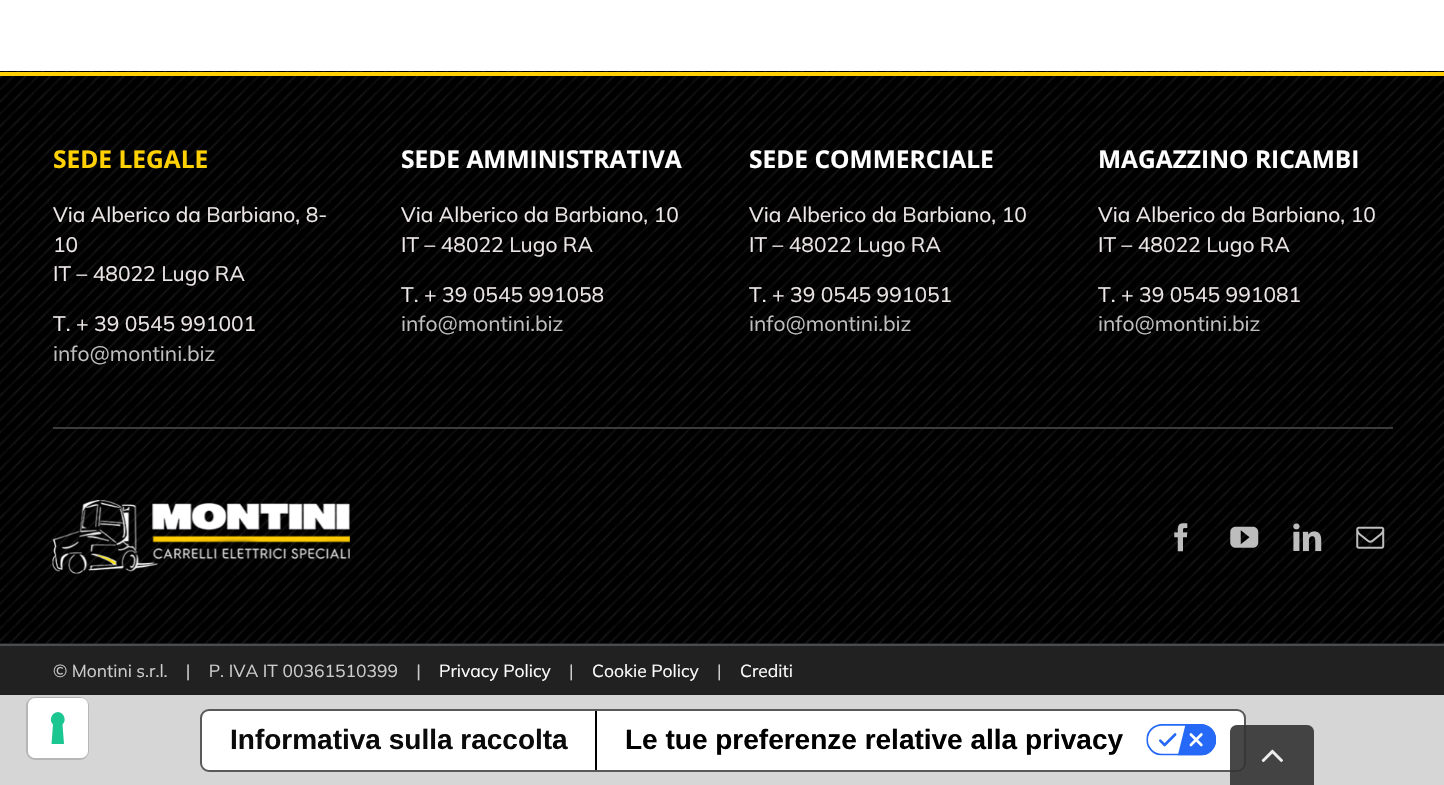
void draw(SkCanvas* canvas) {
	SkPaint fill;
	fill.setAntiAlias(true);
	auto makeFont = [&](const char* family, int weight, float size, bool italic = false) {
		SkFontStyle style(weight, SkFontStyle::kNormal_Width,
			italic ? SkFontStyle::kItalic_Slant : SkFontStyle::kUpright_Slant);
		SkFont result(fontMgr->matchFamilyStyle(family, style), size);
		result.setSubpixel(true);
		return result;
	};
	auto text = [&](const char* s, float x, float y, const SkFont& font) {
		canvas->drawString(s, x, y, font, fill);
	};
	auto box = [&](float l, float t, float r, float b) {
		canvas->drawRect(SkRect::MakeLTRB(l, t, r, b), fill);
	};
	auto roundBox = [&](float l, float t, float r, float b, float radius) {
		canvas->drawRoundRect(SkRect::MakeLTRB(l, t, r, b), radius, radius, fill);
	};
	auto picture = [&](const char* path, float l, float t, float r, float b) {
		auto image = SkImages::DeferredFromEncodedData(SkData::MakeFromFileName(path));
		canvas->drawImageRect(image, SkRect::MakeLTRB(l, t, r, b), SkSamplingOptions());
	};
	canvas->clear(0xFFD7D6D6);
	fill.setColor(0xFFFFFFFF);
	box(0, 0, 1444, 71);
	fill.setColor(0xFF363839);
	box(0, 643, 1444, 644);
	picture("image0.png", 0, 71, 1444, 644);
	fill.setColor(0xFFFFD105);
	box(0, 72, 1444, 76);
	fill.setColor(0xFF3C3C3C);
	box(53, 427, 1393, 429);
	picture("image1.png", 52, 500, 350, 574);
	picture("image2.png", 1174, 523, 1188, 552);
	picture("image3.png", 1230, 526, 1259, 548);
	picture("image4.png", 1293, 523, 1322, 552);
	picture("image5.png", 1356, 526, 1385, 549);
	fill.setColor(0xFF212121);
	box(0, 646, 1444, 695);
	fill.setColor(0xFF4B4C4D);
	box(0, 644, 1444, 646);
	fill.setStyle(SkPaint::kStroke_Style);
	fill.setStrokeWidth(2);
	fill.setColor(0xFFB7B6B6);
	canvas->drawRoundRect(SkRect::MakeLTRB(27, 698, 88, 759), 8, 8, fill);
	fill.setStyle(SkPaint::kFill_Style);
	fill.setColor(0xFFFFFFFF);
	roundBox(28, 698, 88, 758, 7);
	fill.setColor(0xFF1CC691);
	canvas->drawPath(SkPathBuilder(SkPathFillType::kEvenOdd).moveTo(58, 712).cubicTo(64, 712.5f, 67, 720.5f, 62.5f, 724.5f).lineTo(64, 744).lineTo(51.5f, 744).lineTo(53, 724.5f).cubicTo(48.5f, 720.5f, 51.5f, 712.5f, 58, 712).close().detach(), fill);
	fill.setColor(0xFFFFFFFF);
	canvas->drawRoundRect(SkRect::MakeLTRB(201, 710, 1245, 771), 8, 8, fill);
	fill.setStyle(SkPaint::kStroke_Style);
	fill.setColor(0xFF595959);
	canvas->drawRoundRect(SkRect::MakeLTRB(201, 710, 1245, 771), 8, 8, fill);
	fill.setStyle(SkPaint::kFill_Style);
	fill.setColor(0xFF000000);
	box(595, 711, 597, 770);
	picture("image6.png", 1146, 724, 1216, 756);
	fill.setColor(0xE6333333);
	canvas->drawPath(SkPathBuilder().moveTo(1237, 725).lineTo(1307, 725).cubicTo(1311, 725, 1314, 728, 1314, 732).lineTo(1314, 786).lineTo(1230, 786).lineTo(1230, 732).cubicTo(1230, 728, 1233, 725, 1237, 725).close().detach(), fill);
	picture("image7.png", 1261, 749, 1283, 763);
	auto font1 = makeFont("Open Sans", 700, 24.5f);
	fill.setColor(0xFFFFD105);
	text("SEDE LEGALE", 53, 168, font1);
	auto font2 = makeFont("Mulish", 400, 21);
	fill.setColor(0xFFEDE6E6);
	text("Via Alberico da Barbiano, 8-", 53, 222, font2);
	text("10", 53, 252, font2);
	text("IT – 48022 Lugo RA", 53, 281, font2);
	text("T. + 39 0545 991001", 53, 331, font2);
	fill.setColor(0xFFBFBFBF);
	text("info@montini.biz", 53, 361, font2);
	fill.setColor(0xFFFFFFFF);
	text("SEDE AMMINISTRATIVA", 401, 168, font1);
	fill.setColor(0xFFEDE6E6);
	text("Via Alberico da Barbiano, 10", 401, 222, font2);
	text("IT – 48022 Lugo RA", 401, 252, font2);
	text("T. + 39 0545 991058", 401, 302, font2);
	fill.setColor(0xFFBFBFBF);
	text("info@montini.biz", 401, 331, font2);
	fill.setColor(0xFFFFFFFF);
	text("SEDE COMMERCIALE", 749, 168, font1);
	fill.setColor(0xFFEDE6E6);
	text("Via Alberico da Barbiano, 10", 749, 222, font2);
	text("IT – 48022 Lugo RA", 749, 252, font2);
	text("T. + 39 0545 991051", 749, 302, font2);
	fill.setColor(0xFFBFBFBF);
	text("info@montini.biz", 749, 331, font2);
	fill.setColor(0xFFFFFFFF);
	text("MAGAZZINO RICAMBI", 1098, 168, font1);
	fill.setColor(0xFFEDE6E6);
	text("Via Alberico da Barbiano, 10", 1098, 222, font2);
	text("IT – 48022 Lugo RA", 1098, 252, font2);
	text("T. + 39 0545 991081", 1098, 302, font2);
	fill.setColor(0xFFBFBFBF);
	text("info@montini.biz", 1098, 331, font2);
	auto font3 = makeFont("Mulish", 400, 17.5f);
	fill.setColor(0xFFCCCCCC);
	text("© Montini s.r.l.    |    P. IVA IT 00361510399    |", 53, 677, font3);
	fill.setColor(0xFFFFFFFF);
	text("Privacy Policy", 439, 677, font3);
	fill.setColor(0xFFCCCCCC);
	text("|", 569, 677, font3);
	fill.setColor(0xFFFFFFFF);
	text("Cookie Policy", 592, 677, font3);
	fill.setColor(0xFFCCCCCC);
	text("|", 717, 677, font3);
	fill.setColor(0xFFFFFFFF);
	text("Crediti", 740, 677, font3);
	auto font4 = makeFont("Liberation Sans", 700, 28);
	fill.setColor(0xFF0B0B0B);
	text("Informativa sulla raccolta", 230, 749, font4);
	fill.setColor(0xFF000000);
	text("Le tue preferenze relative alla privacy", 625, 749, font4);
}
